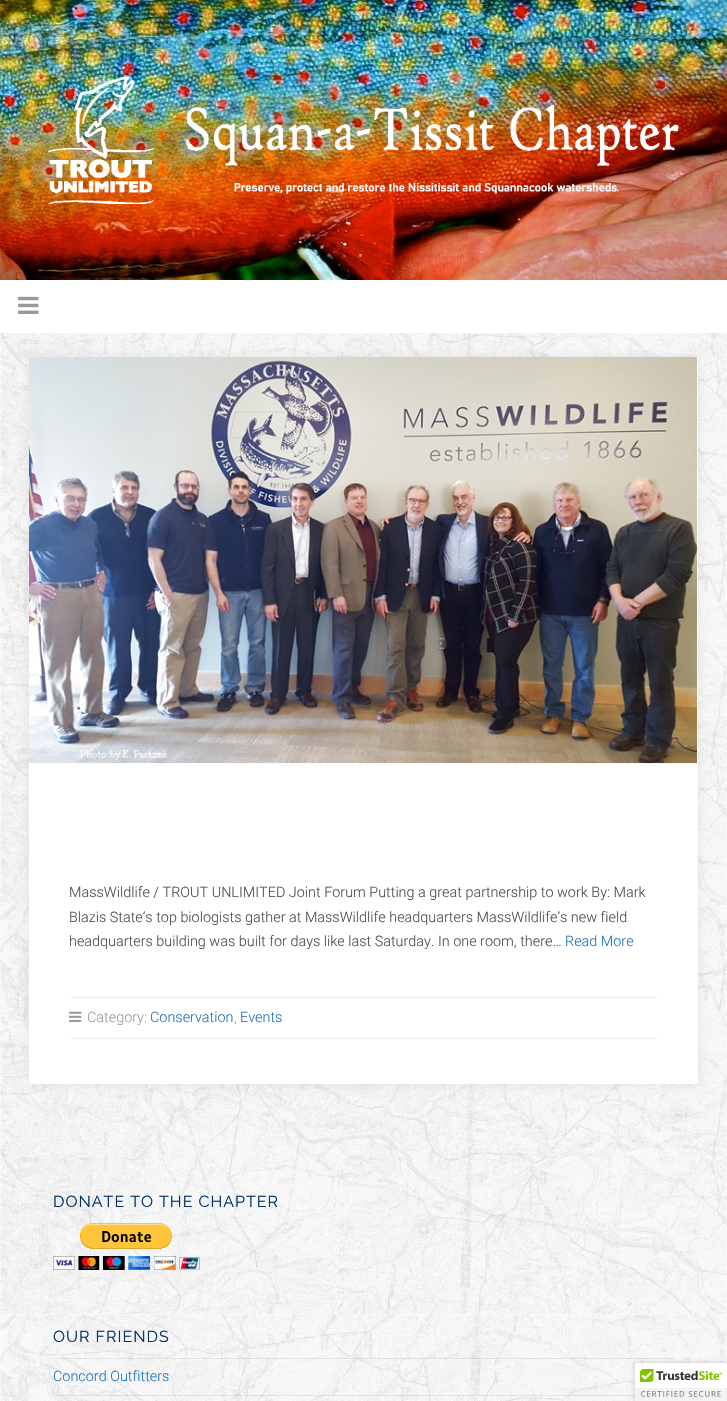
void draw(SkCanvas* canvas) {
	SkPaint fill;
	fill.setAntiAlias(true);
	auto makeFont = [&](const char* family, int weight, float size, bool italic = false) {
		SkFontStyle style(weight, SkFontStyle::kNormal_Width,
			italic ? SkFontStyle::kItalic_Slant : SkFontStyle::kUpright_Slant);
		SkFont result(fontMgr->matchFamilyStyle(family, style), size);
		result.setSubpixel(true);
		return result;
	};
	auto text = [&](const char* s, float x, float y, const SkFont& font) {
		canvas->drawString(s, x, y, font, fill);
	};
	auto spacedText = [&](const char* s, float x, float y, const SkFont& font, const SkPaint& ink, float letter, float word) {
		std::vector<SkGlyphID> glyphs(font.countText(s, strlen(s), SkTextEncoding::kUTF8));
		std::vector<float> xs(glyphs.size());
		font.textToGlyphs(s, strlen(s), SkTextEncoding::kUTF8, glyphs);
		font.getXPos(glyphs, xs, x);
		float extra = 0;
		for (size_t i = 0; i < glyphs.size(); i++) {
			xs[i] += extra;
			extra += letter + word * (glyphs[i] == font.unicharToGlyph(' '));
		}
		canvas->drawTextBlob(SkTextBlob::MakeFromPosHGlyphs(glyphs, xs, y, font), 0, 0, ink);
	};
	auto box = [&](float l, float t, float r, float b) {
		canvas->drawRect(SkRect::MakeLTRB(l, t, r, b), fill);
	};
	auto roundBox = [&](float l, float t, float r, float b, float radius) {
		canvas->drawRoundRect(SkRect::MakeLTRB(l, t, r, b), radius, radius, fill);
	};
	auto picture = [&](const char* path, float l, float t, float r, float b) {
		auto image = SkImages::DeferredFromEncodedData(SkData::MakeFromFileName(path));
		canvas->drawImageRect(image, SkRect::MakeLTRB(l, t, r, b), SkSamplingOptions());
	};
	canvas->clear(0xFFFFFFFF);
	picture("image0.png", 0, 333, 727, 1401);
	picture("image1.png", 0, 0, 727, 280);
	picture("image2.png", 48, 76, 679, 205);
	picture("image3.png", 18, 296, 39, 314);
	fill.setColor(0x14000000);
	fill.setMaskFilter(SkMaskFilter::MakeBlur(kNormal_SkBlurStyle, 6));
	canvas->drawRoundRect(SkRect::MakeLTRB(29, 357, 698, 1084), 3, 3, fill);
	fill.setMaskFilter(nullptr);
	fill.setColor(0xFFFFFFFF);
	roundBox(29, 357, 698, 1084, 3);
	picture("image4.png", 29, 357, 698, 764);
	fill.setColor(0xFFEBEBEB);
	box(71, 997, 657, 998);
	box(71, 1038, 657, 1039);
	picture("image5.png", 69, 1011, 82, 1022);
	picture("image6.png", 53, 1223, 200, 1270);
	fill.setColor(0x14000000);
	box(53, 1358, 674, 1359);
	box(53, 1395, 635, 1396);
	fill.setColor(0x33000000);
	fill.setMaskFilter(SkMaskFilter::MakeBlur(kNormal_SkBlurStyle, 2.5f));
	canvas->drawRoundRect(SkRect::MakeLTRB(635, 1363, 727, 1401), 2, 2, fill);
	fill.setMaskFilter(nullptr);
	fill.setColor(0xFFFFFFFF);
	canvas->drawPath(SkPathBuilder().moveTo(637, 1363).lineTo(727, 1363).lineTo(727, 1401).lineTo(635, 1401).lineTo(635, 1365).cubicTo(635, 1364, 636, 1363, 637, 1363).close().detach(), fill);
	picture("image7.png", 635, 1363, 727, 1401);
	auto font1 = makeFont("Roboto", 300, 14.4f);
	fill.setColor(0xFF4D4D4D);
	text("MassWildlife / TROUT UNLIMITED Joint Forum Putting a great partnership to work By: Mark", 69, 897, font1);
	text("Blazis State’s top biologists gather at MassWildlife headquarters MassWildlife’s new field", 69, 922, font1);
	text("headquarters building was built for days like last Saturday. In one room, there…", 69, 946, font1);
	fill.setColor(0xFF1E73BE);
	text("Read More", 565, 946, font1);
	fill.setColor(0xFF999999);
	text("Category:", 87, 1022, font1);
	fill.setColor(0xFF1E73BE);
	text("Conservation", 150, 1022, font1);
	fill.setColor(0xFF999999);
	text(",", 234, 1022, font1);
	fill.setColor(0xFF1E73BE);
	text("Events", 240, 1022, font1);
	auto font2 = makeFont("Raleway", 400, 16);
	fill.setColor(0xFF003066);
	spacedText("DONATE TO THE CHAPTER", 53, 1207, font2, fill, 1, 0);
	spacedText("OUR FRIENDS", 53, 1342, font2, fill, 1, 0);
	fill.setColor(0xFF1E73BE);
	text("Concord Outfitters", 53, 1381, font1);
}
